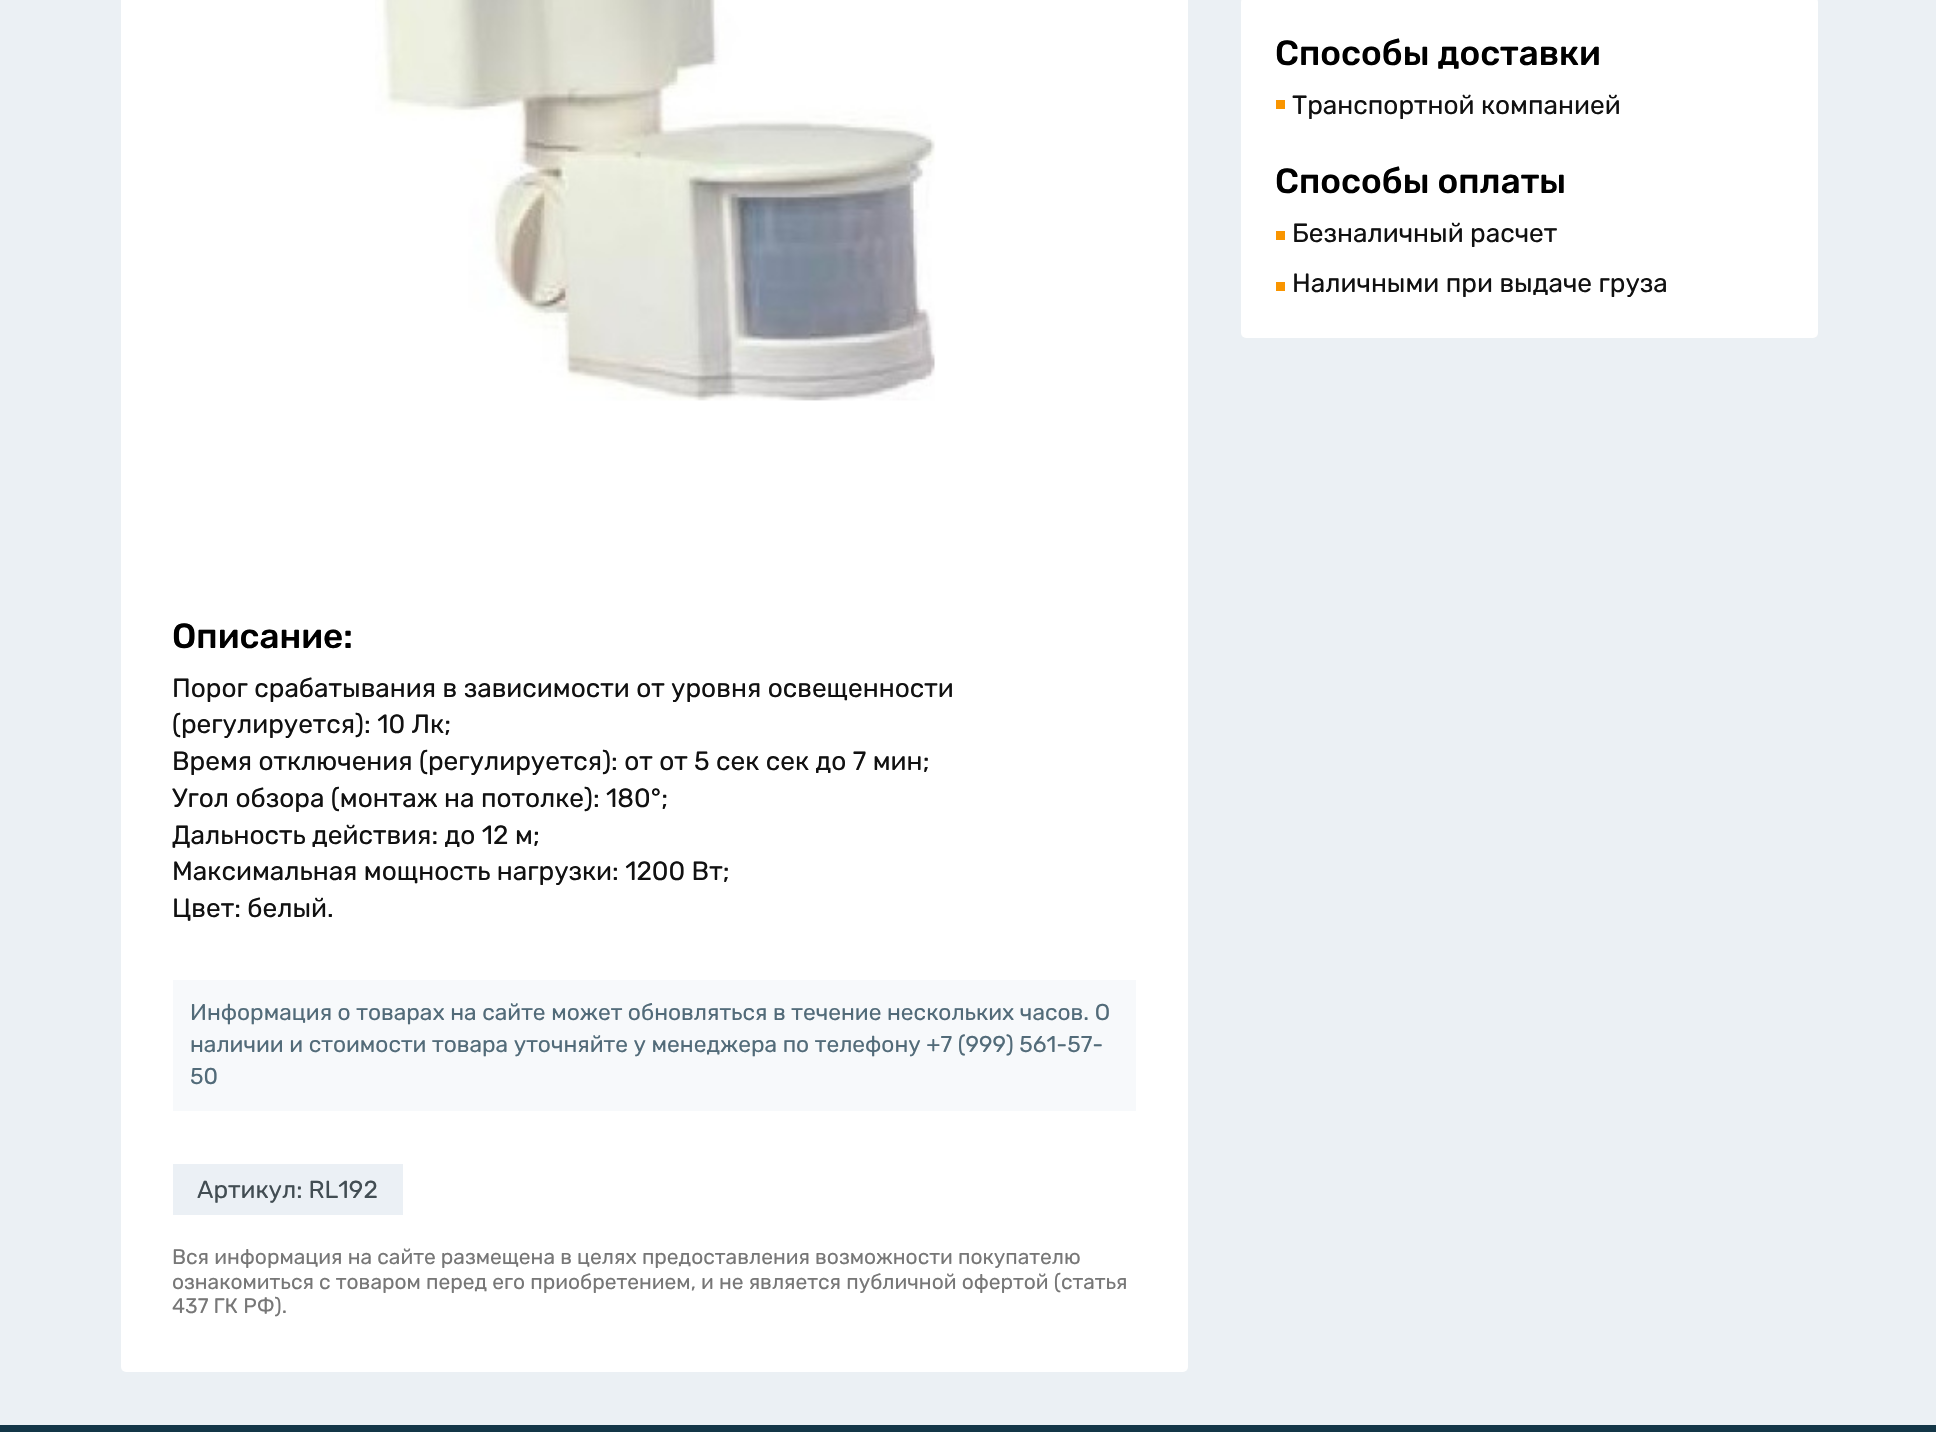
void draw(SkCanvas* canvas) {
	SkPaint fill;
	fill.setAntiAlias(true);
	auto makeFont = [&](const char* family, int weight, float size, bool italic = false) {
		SkFontStyle style(weight, SkFontStyle::kNormal_Width,
			italic ? SkFontStyle::kItalic_Slant : SkFontStyle::kUpright_Slant);
		SkFont result(fontMgr->matchFamilyStyle(family, style), size);
		result.setSubpixel(true);
		return result;
	};
	auto text = [&](const char* s, float x, float y, const SkFont& font) {
		canvas->drawString(s, x, y, font, fill);
	};
	auto box = [&](float l, float t, float r, float b) {
		canvas->drawRect(SkRect::MakeLTRB(l, t, r, b), fill);
	};
	auto roundBox = [&](float l, float t, float r, float b, float radius) {
		canvas->drawRoundRect(SkRect::MakeLTRB(l, t, r, b), radius, radius, fill);
	};
	auto picture = [&](const char* path, float l, float t, float r, float b) {
		auto image = SkImages::DeferredFromEncodedData(SkData::MakeFromFileName(path));
		canvas->drawImageRect(image, SkRect::MakeLTRB(l, t, r, b), SkSamplingOptions());
	};
	canvas->clear(0xFFEBF0F4);
	fill.setColor(0xFFFFFFFF);
	roundBox(1241, -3, 1818, 338, 5);
	fill.setColor(0xFFF99500);
	box(1276, 100, 1285, 109);
	box(1276, 231, 1285, 240);
	box(1276, 282, 1285, 291);
	fill.setColor(0xFFFFFFFF);
	roundBox(121, -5, 1188, 1372, 5);
	picture("image0.png", 375, 0, 936, 401);
	fill.setColor(0xFFF7F9FB);
	box(173, 980, 1136, 1111);
	fill.setColor(0xFFEBF0F5);
	box(173, 1164, 403, 1215);
	fill.setColor(0xFF133647);
	box(0, 1425, 1936, 1432);
	auto font1 = makeFont("Rubik", 500, 35);
	fill.setColor(0xFF000000);
	text("Способы доставки", 1275, 65, font1);
	auto font2 = makeFont("Rubik", 400, 26.25f);
	fill.setColor(0xFF111111);
	text("Транспортной компанией", 1292, 114, font2);
	fill.setColor(0xFF000000);
	text("Способы оплаты", 1275, 193, font1);
	fill.setColor(0xFF111111);
	text("Безналичный расчет", 1292, 242, font2);
	text("Наличными при выдаче груза", 1292, 292, font2);
	fill.setColor(0xFF000000);
	text("Описание:", 172, 648, font1);
	fill.setColor(0xFF111111);
	text("Порог срабатывания в зависимости от уровня освещенности", 172, 697, font2);
	text("(регулируется): 10 Лк;", 172, 733, font2);
	text("Время отключения (регулируется): от от 5 сек сек до 7 мин;", 172, 770, font2);
	text("Угол обзора (монтаж на потолке): 180°;", 172, 807, font2);
	text("Дальность действия: до 12 м;", 172, 844, font2);
	text("Максимальная мощность нагрузки: 1200 Вт;", 172, 880, font2);
	text("Цвет: белый.", 172, 917, font2);
	auto font3 = makeFont("Rubik", 400, 22.75f);
	fill.setColor(0xFF526B79);
	text("Информация о товарах на сайте может обновляться в течение нескольких часов. О", 190, 1020, font3);
	text("наличии и стоимости товара уточняйте у менеджера по телефону +7 (999) 561-57-", 190, 1052, font3);
	text("50", 190, 1084, font3);
	auto font4 = makeFont("Rubik", 400, 24.5f);
	fill.setColor(0xFF424D53);
	text("Артикул: RL192", 197, 1198, font4);
	auto font5 = makeFont("Rubik", 400, 21);
	fill.setColor(0xFF777777);
	text("Вся информация на сайте размещена в целях предоставления возможности покупателю", 172, 1264, font5);
	text("ознакомиться с товаром перед его приобретением, и не является публичной офертой (статья", 172, 1289, font5);
	text("437 ГК РФ).", 172, 1313, font5);
}
